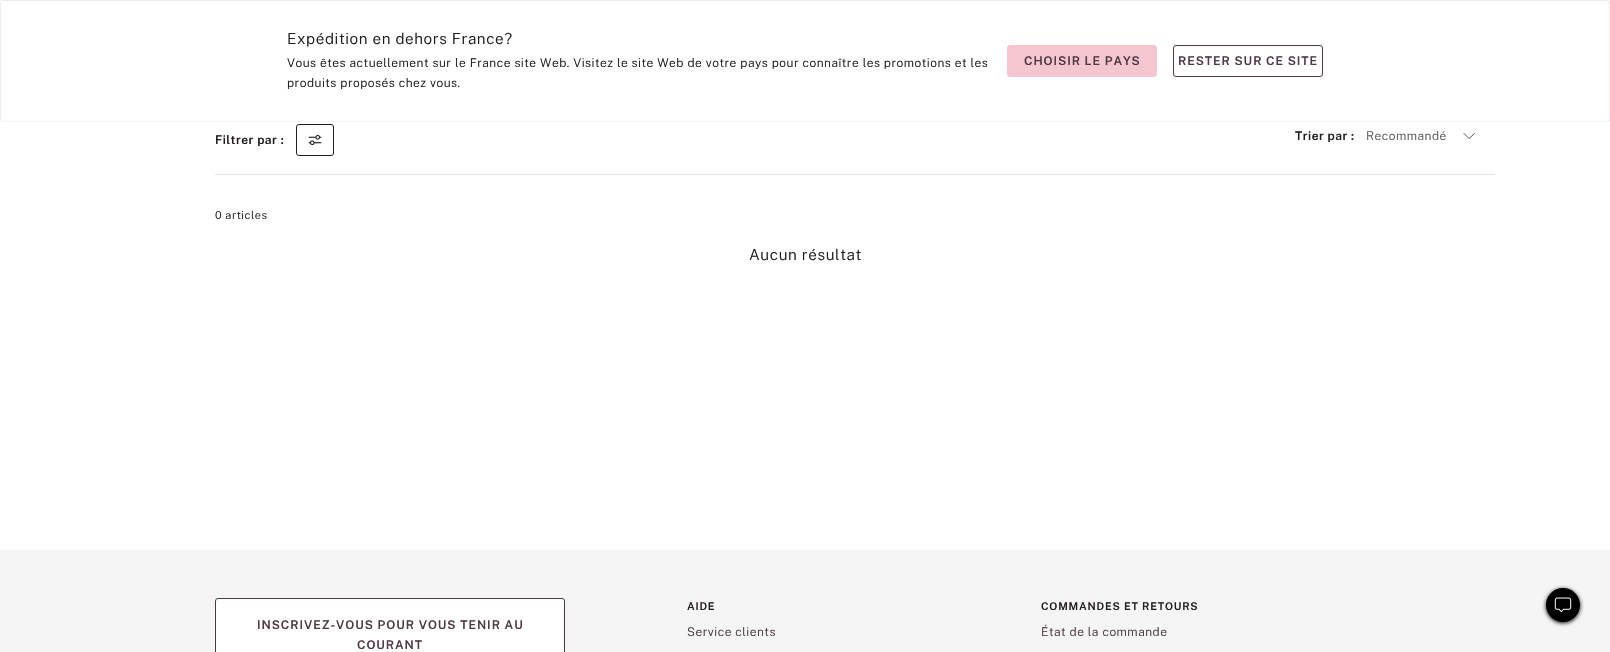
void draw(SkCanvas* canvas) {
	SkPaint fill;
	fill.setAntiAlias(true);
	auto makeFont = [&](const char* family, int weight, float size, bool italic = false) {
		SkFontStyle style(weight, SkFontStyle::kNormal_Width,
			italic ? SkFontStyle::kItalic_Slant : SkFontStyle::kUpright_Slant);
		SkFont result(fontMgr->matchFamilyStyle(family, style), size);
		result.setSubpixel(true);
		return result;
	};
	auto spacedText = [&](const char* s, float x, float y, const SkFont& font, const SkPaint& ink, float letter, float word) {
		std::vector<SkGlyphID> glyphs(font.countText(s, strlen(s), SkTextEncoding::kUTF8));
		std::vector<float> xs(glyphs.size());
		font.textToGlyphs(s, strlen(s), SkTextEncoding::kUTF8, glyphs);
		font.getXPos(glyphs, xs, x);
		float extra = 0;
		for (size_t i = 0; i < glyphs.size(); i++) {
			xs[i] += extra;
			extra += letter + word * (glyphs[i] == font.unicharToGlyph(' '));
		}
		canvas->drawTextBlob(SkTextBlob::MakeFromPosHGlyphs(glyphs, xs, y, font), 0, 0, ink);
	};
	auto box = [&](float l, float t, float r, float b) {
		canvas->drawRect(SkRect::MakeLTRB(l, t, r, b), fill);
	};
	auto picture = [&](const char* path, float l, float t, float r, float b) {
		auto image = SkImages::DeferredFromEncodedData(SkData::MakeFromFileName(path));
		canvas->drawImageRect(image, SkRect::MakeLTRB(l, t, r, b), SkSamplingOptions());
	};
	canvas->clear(0xFFFFFFFF);
	fill.setStyle(SkPaint::kStroke_Style);
	fill.setStrokeWidth(1);
	fill.setColor(0xFFF5F5F6);
	canvas->drawPath(SkPathBuilder().moveTo(1609, 121).lineTo(1608, 121.5f).lineTo(2, 121.5f).lineTo(1, 121).detach(), fill);
	fill.setColor(0xFFEFECEA);
	canvas->drawPath(SkPathBuilder().moveTo(1, 121).lineTo(0.5f, 120).lineTo(0.5f, 2).lineTo(1, 1).lineTo(2, 0.5f).lineTo(1608, 0.5f).lineTo(1609, 1).lineTo(1609.5f, 2).lineTo(1609.5f, 120).lineTo(1609, 121).detach(), fill);
	fill.setStyle(SkPaint::kFill_Style);
	fill.setColor(0xFFF4C6CF);
	canvas->drawRoundRect(SkRect::MakeLTRB(1007.5f, 45.5f, 1156.5f, 76.5f), 2.5f, 2.5f, fill);
	fill.setStyle(SkPaint::kStroke_Style);
	canvas->drawRoundRect(SkRect::MakeLTRB(1007.5f, 45.5f, 1156.5f, 76.5f), 2.5f, 2.5f, fill);
	fill.setColor(0xFF4E3844);
	canvas->drawRoundRect(SkRect::MakeLTRB(1173.5f, 45.5f, 1322.5f, 76.5f), 2.5f, 2.5f, fill);
	fill.setStyle(SkPaint::kFill_Style);
	fill.setColor(0xFFE8E3DF);
	box(215, 174, 1495, 175);
	fill.setStyle(SkPaint::kStroke_Style);
	fill.setColor(0xFF221D1D);
	canvas->drawRoundRect(SkRect::MakeLTRB(296.5f, 124.5f, 333.5f, 155.5f), 2.5f, 2.5f, fill);
	picture("image0.png", 308, 135, 322, 146);
	fill.setStrokeWidth(0.8f);
	fill.setStrokeCap(SkPaint::kRound_Cap);
	canvas->drawPath(SkPathBuilder().moveTo(1474.5f, 133.5f).lineTo(1469, 138.5f).lineTo(1464, 133.5f).detach(), fill);
	fill.setStyle(SkPaint::kFill_Style);
	fill.setColor(0xFFF5F5F6);
	box(0, 550, 1610, 652);
	fill.setColor(0xFF000000);
	fill.setMaskFilter(SkMaskFilter::MakeBlur(kNormal_SkBlurStyle, 2));
	canvas->drawRoundRect(SkRect::MakeLTRB(1546, 589, 1580, 623), 17, 17, fill);
	fill.setMaskFilter(nullptr);
	canvas->drawCircle(1563, 605, 17, fill);
	picture("image1.png", 1554, 597, 1572, 613);
	fill.setColor(0xFFFFFFFF);
	canvas->drawRoundRect(SkRect::MakeLTRB(215.5f, 598.5f, 564.5f, 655.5f), 2.5f, 2.5f, fill);
	fill.setStyle(SkPaint::kStroke_Style);
	fill.setStrokeWidth(1);
	fill.setStrokeCap(SkPaint::kButt_Cap);
	fill.setColor(0xFF4E3844);
	canvas->drawRoundRect(SkRect::MakeLTRB(215.5f, 598.5f, 564.5f, 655.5f), 2.5f, 2.5f, fill);
	auto font1 = makeFont("Public Sans", 300, 15.25f);
	fill.setStyle(SkPaint::kFill_Style);
	fill.setColor(0xFF221D1D);
	spacedText("Expédition en dehors France?", 287, 44, font1, fill, 0.6f, 0);
	auto font2 = makeFont("Public Sans", 300, 12);
	spacedText("Vous êtes actuellement sur le France site Web. Visitez le site Web de votre pays pour connaître les promotions et les", 287, 67, font2, fill, 0.48f, 0);
	spacedText("produits proposés chez vous.", 287, 87, font2, fill, 0.48f, 0);
	auto font3 = makeFont("Public Sans", 600, 12);
	fill.setColor(0xFF4E3844);
	spacedText("CHOISIR LE PAYS", 1024, 65, font3, fill, 0.95f, 0);
	spacedText("RESTER SUR CE SITE", 1178, 65, font3, fill, 0.95f, 0);
	fill.setColor(0xFF221D1D);
	spacedText("Filtrer par :", 215, 144, font3, fill, 0.48f, 0);
	spacedText("Trier par :", 1295, 140, font3, fill, 0.48f, 0);
	fill.setColor(0xFF605858);
	spacedText("Recommandé", 1366, 140, font2, fill, 0.48f, 0);
	auto font4 = makeFont("Public Sans", 300, 11);
	fill.setColor(0xFF221D1D);
	spacedText("0 articles", 215, 219, font4, fill, 0.5f, 0);
	spacedText("Aucun résultat", 749, 260, font1, fill, 0.6f, 0);
	fill.setColor(0xFF4E3844);
	spacedText("INSCRIVEZ-VOUS POUR VOUS TENIR AU", 257, 629, font3, fill, 0.95f, 0);
	spacedText("COURANT", 357, 649, font3, fill, 0.95f, 0);
	auto font5 = makeFont("Public Sans", 600, 10.7f);
	fill.setColor(0xFF221D1D);
	spacedText("AIDE", 687, 610, font5, fill, 0.8f, 0);
	fill.setColor(0xFF4E3844);
	spacedText("Service clients", 687, 636, font2, fill, 0.48f, 0);
	fill.setColor(0xFF221D1D);
	spacedText("COMMANDES ET RETOURS", 1041, 610, font5, fill, 0.8f, 0);
	fill.setColor(0xFF4E3844);
	spacedText("État de la commande", 1041, 636, font2, fill, 0.48f, 0);
}
